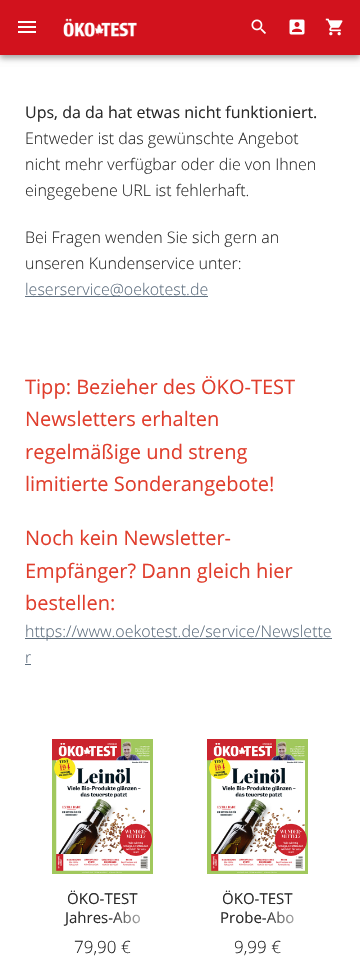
void draw(SkCanvas* canvas) {
	SkPaint fill;
	fill.setAntiAlias(true);
	auto makeFont = [&](const char* family, int weight, float size, bool italic = false) {
		SkFontStyle style(weight, SkFontStyle::kNormal_Width,
			italic ? SkFontStyle::kItalic_Slant : SkFontStyle::kUpright_Slant);
		SkFont result(fontMgr->matchFamilyStyle(family, style), size);
		result.setSubpixel(true);
		return result;
	};
	auto text = [&](const char* s, float x, float y, const SkFont& font) {
		canvas->drawString(s, x, y, font, fill);
	};
	auto box = [&](float l, float t, float r, float b) {
		canvas->drawRect(SkRect::MakeLTRB(l, t, r, b), fill);
	};
	auto picture = [&](const char* path, float l, float t, float r, float b) {
		auto image = SkImages::DeferredFromEncodedData(SkData::MakeFromFileName(path));
		canvas->drawImageRect(image, SkRect::MakeLTRB(l, t, r, b), SkSamplingOptions());
	};
	canvas->clear(0xFFFFFFFF);
	fill.setColor(0x3B000000);
	fill.setMaskFilter(SkMaskFilter::MakeBlur(kNormal_SkBlurStyle, 3));
	canvas->drawRect(SkRect::MakeLTRB(0, 3, 360, 58), fill);
	fill.setMaskFilter(nullptr);
	fill.setColor(0x29000000);
	fill.setMaskFilter(SkMaskFilter::MakeBlur(kNormal_SkBlurStyle, 3));
	canvas->drawRect(SkRect::MakeLTRB(0, 3, 360, 58), fill);
	fill.setMaskFilter(nullptr);
	fill.setColor(0xFFD2121D);
	box(0, 0, 360, 55);
	picture("image0.png", 18, 21, 36, 33);
	picture("image1.png", 63, 18, 137, 37);
	picture("image2.png", 251, 19, 266, 34);
	picture("image3.png", 289, 19, 305, 35);
	picture("image4.png", 325, 18, 343, 36);
	fill.setColor(0xFF5F6F7F);
	box(25, 296, 208, 297);
	box(25, 638, 332, 639);
	box(25, 664, 31, 665);
	picture("image5.png", 52, 739, 153, 874);
	picture("image6.png", 207, 739, 308, 874);
	auto font1 = makeFont("Open Sans", 400, 16);
	fill.setColor(0xFF2A2A2A);
	text("Ups, da da hat etwas nicht funktioniert.", 25, 118, font1);
	auto font2 = makeFont("Open Sans", 300, 16);
	text("Entweder ist das gewünschte Angebot", 25, 144, font2);
	text("nicht mehr verfügbar oder die von Ihnen", 25, 170, font2);
	text("eingegebene URL ist fehlerhaft.", 25, 196, font2);
	text("Bei Fragen wenden Sie sich gern an", 25, 243, font2);
	text("unseren Kundenservice unter:", 25, 269, font2);
	fill.setColor(0xFF5F6F7F);
	text("leserservice@oekotest.de", 25, 295, font2);
	auto font3 = makeFont("Open Sans", 400, 20);
	fill.setColor(0xFFE03E2D);
	text("Tipp: Bezieher des ÖKO-TEST", 25, 394, font3);
	text("Newsletters erhalten", 25, 426, font3);
	text("regelmäßige und streng", 25, 459, font3);
	text("limitierte Sonderangebote!", 25, 491, font3);
	text("Noch kein Newsletter-", 25, 545, font3);
	text("Empfänger? Dann gleich hier", 25, 578, font3);
	text("bestellen:", 25, 610, font3);
	fill.setColor(0xFF5F6F7F);
	text("https://www.oekotest.de/service/Newslette", 25, 637, font2);
	text("r", 25, 663, font2);
	auto font4 = makeFont("Open Sans", 400, 15);
	fill.setColor(0xFF2A2A2A);
	text("ÖKO-TEST", 67, 904, font4);
	text("Jahres-Abo", 65, 923, font4);
	{
		const SkColor colors[] = {0x00FFFFFF, 0xFFFFFFFF};
		const float stops[] = {0, 1};
		const SkPoint ends[] = {{110, 919}, {160, 919}};
		fill.setShader(SkGradientShader::MakeLinear(ends, colors, stops, 2, SkTileMode::kClamp));
		fill.setAlpha(255);
	}
	box(111, 911, 140, 924);
	auto font5 = makeFont("Open Sans", 300, 17);
	fill.setShader(nullptr);
	fill.setColor(0xFF2A2A2A);
	text("79,90 €", 74, 953, font5);
	text("ÖKO-TEST", 222, 904, font4);
	text("Probe-Abo", 220, 923, font4);
	{
		const SkColor colors[] = {0x00FFFFFF, 0xFFFFFFFF};
		const float stops[] = {0, 1};
		const SkPoint ends[] = {{265, 919}, {315, 919}};
		fill.setShader(SkGradientShader::MakeLinear(ends, colors, stops, 2, SkTileMode::kClamp));
		fill.setAlpha(255);
	}
	box(267, 911, 294, 924);
	fill.setShader(nullptr);
	fill.setColor(0xFF2A2A2A);
	text("9,99 €", 234, 953, font5);
}
